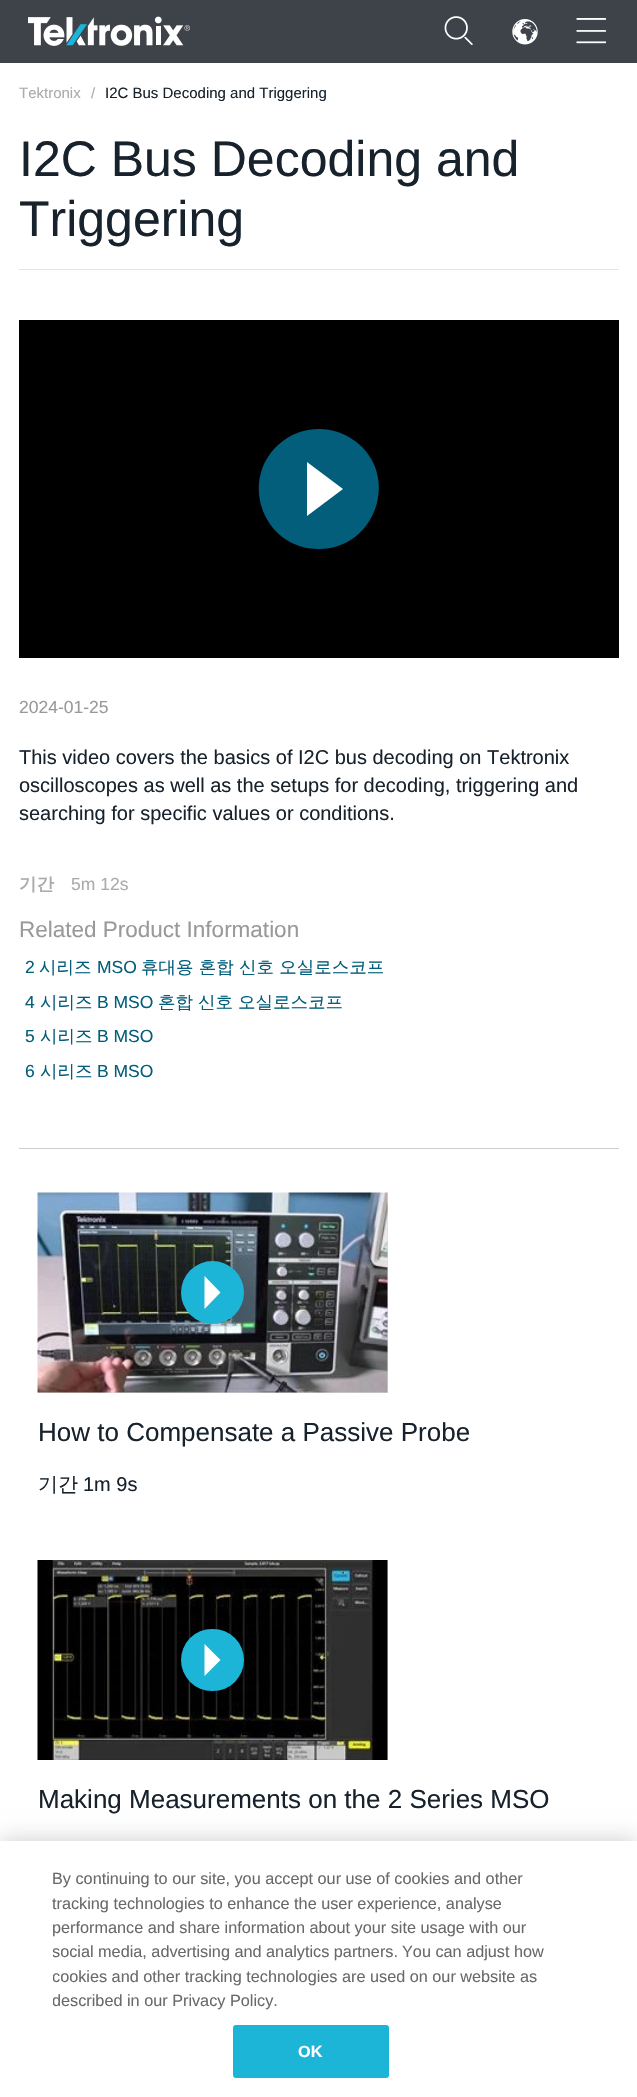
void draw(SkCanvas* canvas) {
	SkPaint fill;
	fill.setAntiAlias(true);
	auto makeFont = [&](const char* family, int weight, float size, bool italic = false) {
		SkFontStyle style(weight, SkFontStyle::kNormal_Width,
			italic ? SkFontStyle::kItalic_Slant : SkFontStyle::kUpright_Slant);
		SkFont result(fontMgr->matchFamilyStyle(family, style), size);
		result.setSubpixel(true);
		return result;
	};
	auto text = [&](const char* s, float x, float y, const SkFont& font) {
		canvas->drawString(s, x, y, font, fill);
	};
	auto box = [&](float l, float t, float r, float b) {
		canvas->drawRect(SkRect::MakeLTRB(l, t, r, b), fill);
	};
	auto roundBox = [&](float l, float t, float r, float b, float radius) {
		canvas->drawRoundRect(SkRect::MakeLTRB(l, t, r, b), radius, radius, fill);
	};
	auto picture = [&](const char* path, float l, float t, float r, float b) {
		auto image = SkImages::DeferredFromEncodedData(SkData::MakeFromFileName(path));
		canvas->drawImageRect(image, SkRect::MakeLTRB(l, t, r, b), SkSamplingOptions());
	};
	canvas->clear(0xFFFFFFFF);
	fill.setColor(0xFF3E434A);
	box(0, 0, 637, 63);
	picture("image0.png", 28, 16, 190, 46);
	picture("image1.png", 444, 16, 473, 45);
	picture("image2.png", 512, 19, 538, 45);
	picture("image3.png", 576, 18, 607, 44);
	fill.setColor(0xFFE5E5E5);
	box(19, 269, 619, 270);
	fill.setColor(0xFF000000);
	box(19, 320, 619, 658);
	fill.setColor(0xFFFFFFFF);
	canvas->drawCircle(319, 489, 55, fill);
	fill.setColor(0xFF035E7C);
	canvas->drawPath(SkPathBuilder().moveTo(307, 516).lineTo(343, 489).lineTo(307, 462).close().moveTo(319, 429).cubicTo(332, 429, 344, 433, 355, 441).cubicTo(401, 475, 376, 549, 319, 549).cubicTo(261, 549, 237, 475, 283, 441).cubicTo(293, 433, 306, 429, 319, 429).close().detach(), fill);
	fill.setColor(0xFFCCCCCC);
	box(19, 1148, 619, 1149);
	fill.setColor(0xFFDDDDDD);
	box(38, 1193, 388, 1393);
	picture("image4.png", 37, 1192, 388, 1393);
	fill.setColor(0xFF1CB5D8);
	canvas->drawCircle(212.5f, 1292.5f, 31.5f, fill);
	fill.setColor(0xFFFFFFFF);
	canvas->drawPath(SkPathBuilder().moveTo(204.5f, 1309).lineTo(204.5f, 1276).lineTo(220.5f, 1292.5f).close().detach(), fill);
	fill.setColor(0xFFDDDDDD);
	box(387, 1560, 388, 1760);
	picture("image5.png", 37, 1560, 388, 1760);
	fill.setColor(0xFF1CB5D8);
	roundBox(181, 1629, 244, 1691, 31);
	fill.setColor(0xFFFFFFFF);
	canvas->drawPath(SkPathBuilder().moveTo(204.5f, 1676).lineTo(204.5f, 1644).lineTo(220.5f, 1660).close().detach(), fill);
	fill.setColor(0x33000000);
	fill.setMaskFilter(SkMaskFilter::MakeBlur(kNormal_SkBlurStyle, 11));
	canvas->drawRect(SkRect::MakeLTRB(0, 1841, 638, 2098), fill);
	fill.setMaskFilter(nullptr);
	fill.setColor(0xFFFFFFFF);
	box(0, 1841, 637, 2097);
	fill.setColor(0xFF1CB5D8);
	canvas->drawRoundRect(SkRect::MakeLTRB(233.5f, 2025.5f, 388.5f, 2077.5f), 2, 2, fill);
	fill.setStyle(SkPaint::kStroke_Style);
	fill.setStrokeWidth(1);
	canvas->drawRoundRect(SkRect::MakeLTRB(233.5f, 2025.5f, 388.5f, 2077.5f), 2, 2, fill);
	auto font1 = makeFont("Liberation Sans", 400, 15);
	fill.setStyle(SkPaint::kFill_Style);
	fill.setColor(0xFFABABAB);
	text("Tektronix", 19, 98, font1);
	text("/", 91, 98, font1);
	fill.setColor(0xFF17222C);
	text("I2C Bus Decoding and Triggering", 105, 98, font1);
	auto font2 = makeFont("Liberation Sans", 400, 50);
	text("I2C Bus Decoding and", 19, 176, font2);
	text("Triggering", 19, 236, font2);
	auto font3 = makeFont("Liberation Sans", 400, 17.5f);
	fill.setColor(0xFF999999);
	text("2024-01-25", 19, 713, font3);
	auto font4 = makeFont("Liberation Sans", 400, 20);
	fill.setColor(0xFF17222C);
	text("This video covers the basics of I2C bus decoding on Tektronix", 19, 764, font4);
	text("oscilloscopes as well as the setups for decoding, triggering and", 19, 792, font4);
	text("searching for specific values or conditions.", 19, 820, font4);
	auto font5 = makeFont("WenQuanYi Zen Hei", 700, 17.5f);
	fill.setColor(0xFFABABAB);
	text("기간", 19, 890, font5);
	text("5m 12s", 71, 890, font3);
	auto font6 = makeFont("Liberation Sans", 400, 22.5f);
	fill.setColor(0xFF999999);
	text("Related Product Information", 19, 937, font6);
	fill.setColor(0xFF035E7C);
	text("2", 25, 973, font3);
	auto font7 = makeFont("WenQuanYi Zen Hei", 500, 17.5f);
	text("시리즈", 39, 973, font7);
	text("MSO", 97, 973, font3);
	text("휴대용 혼합 신호 오실로스코프", 141, 973, font7);
	text("4", 25, 1008, font3);
	text("시리즈", 40, 1008, font7);
	text("B MSO", 97, 1008, font3);
	text("혼합", 158, 1008, font7);
	text("신호", 198, 1008, font7);
	text("오실로스코프", 238, 1008, font7);
	text("5", 25, 1042, font3);
	text("시리즈", 40, 1042, font7);
	text("B MSO", 97, 1042, font3);
	text("6", 25, 1077, font3);
	text("시리즈", 40, 1077, font7);
	text("B MSO", 97, 1077, font3);
	auto font8 = makeFont("Liberation Sans", 400, 26);
	fill.setColor(0xFF17222C);
	text("How to Compensate a Passive Probe", 38, 1441, font8);
	auto font9 = makeFont("WenQuanYi Zen Hei", 500, 20);
	text("기간", 38, 1491, font9);
	text("1m 9s", 83, 1491, font4);
	text("Making Measurements on the 2 Series MSO", 38, 1808, font8);
	auto font10 = makeFont("Liberation Sans", 400, 16.25f);
	fill.setColor(0xFF696969);
	text("By continuing to our site, you accept our use of cookies and other", 52, 1884, font10);
	text("tracking technologies to enhance the user experience, analyse", 52, 1909, font10);
	text("performance and share information about your site usage with our", 52, 1933, font10);
	canvas->save();
	canvas->clipRect(SkRect::MakeLTRB(53, 1866, 558, 2013));
	text("social media, advertising and analytics partners.", 52, 1957, font10);
	canvas->restore();
	text("You can adjust how", 402, 1957, font10);
	canvas->save();
	canvas->clipRect(SkRect::MakeLTRB(53, 1866, 558, 2013));
	text("cookies and other tracking technologies are used on our website as", 52, 1982, font10);
	text("described in our Privacy Policy.", 52, 2006, font10);
	canvas->restore();
	auto font11 = makeFont("Liberation Sans", 700, 16.25f);
	fill.setColor(0xFFFFFFFF);
	text("OK", 298, 2057, font11);
}
